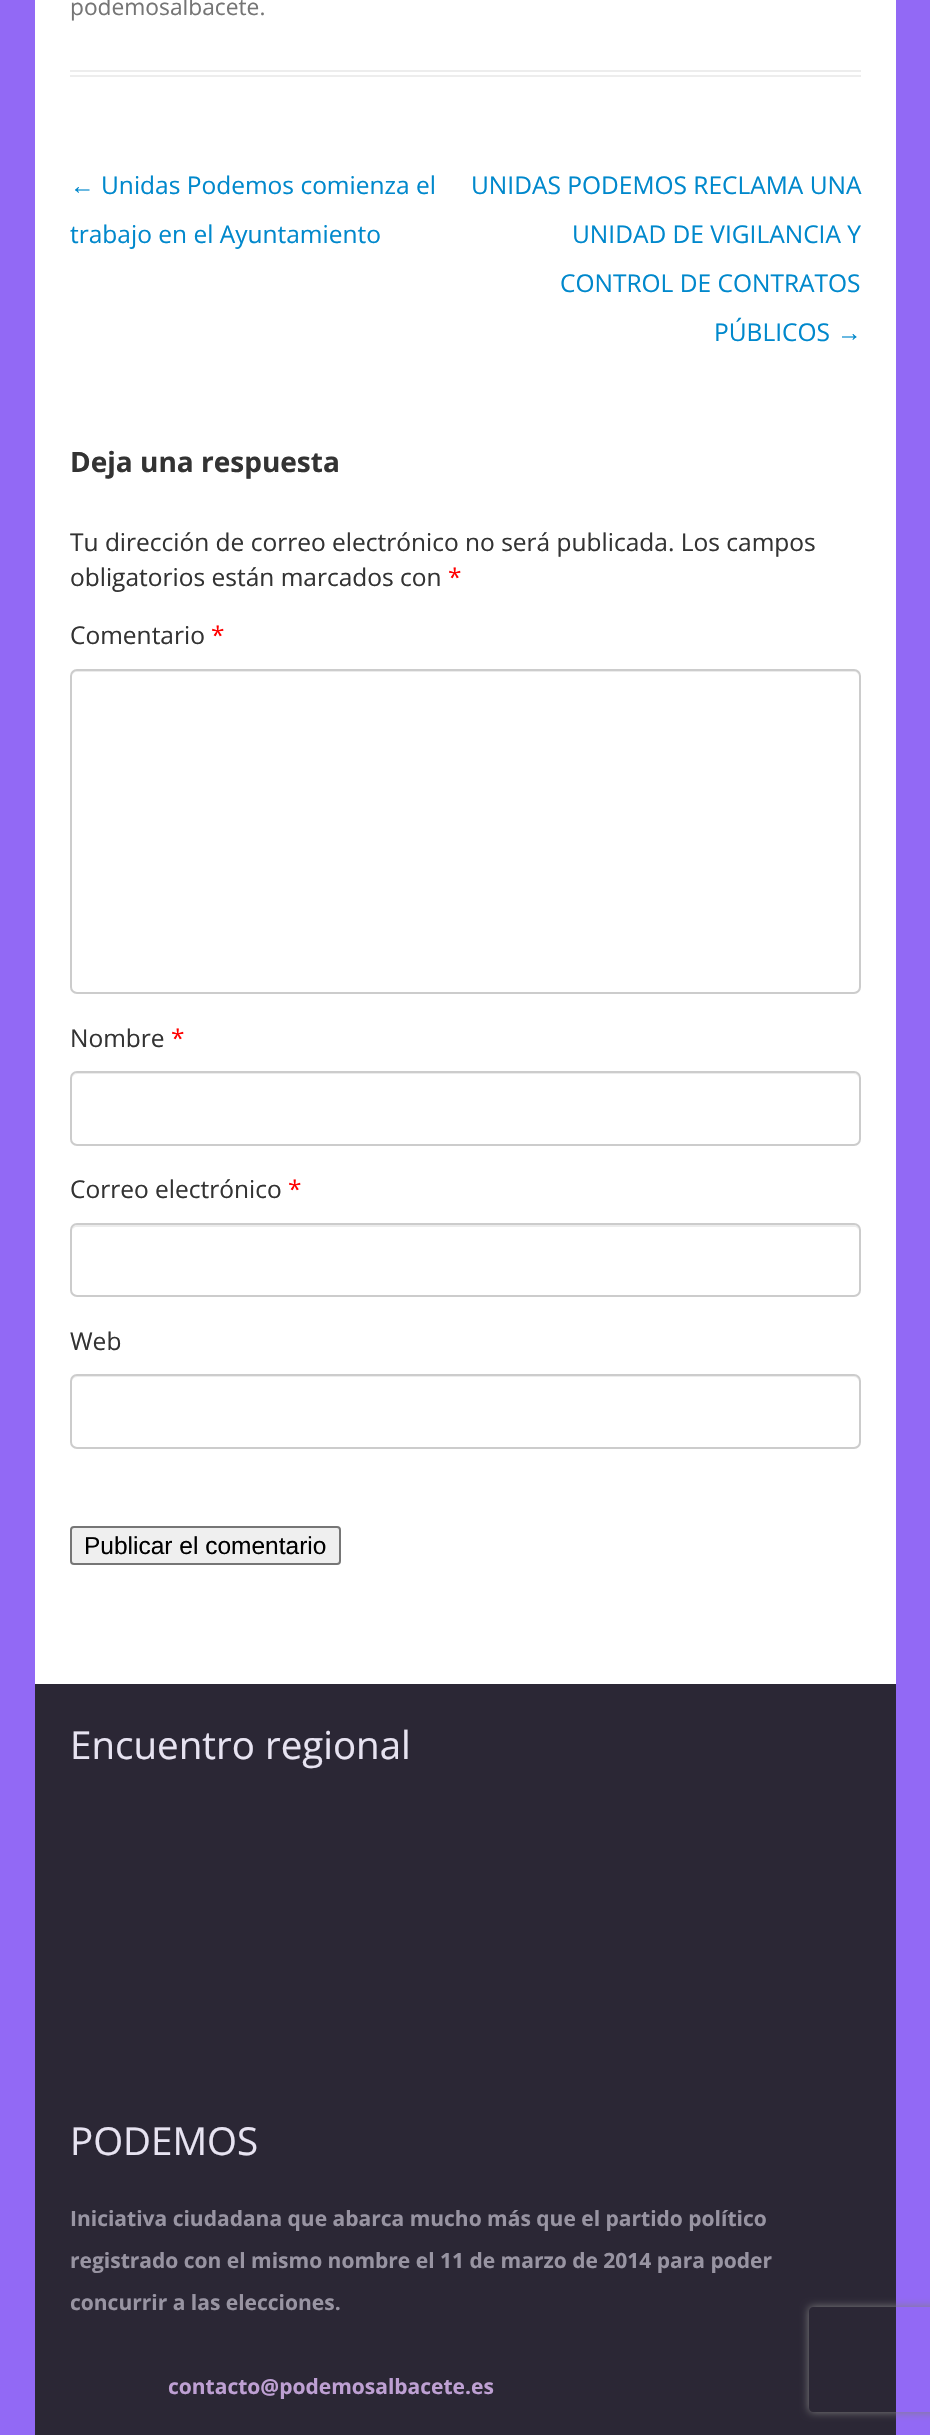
void draw(SkCanvas* canvas) {
	SkPaint fill;
	fill.setAntiAlias(true);
	auto makeFont = [&](const char* family, int weight, float size, bool italic = false) {
		SkFontStyle style(weight, SkFontStyle::kNormal_Width,
			italic ? SkFontStyle::kItalic_Slant : SkFontStyle::kUpright_Slant);
		SkFont result(fontMgr->matchFamilyStyle(family, style), size);
		result.setSubpixel(true);
		return result;
	};
	auto text = [&](const char* s, float x, float y, const SkFont& font) {
		canvas->drawString(s, x, y, font, fill);
	};
	auto box = [&](float l, float t, float r, float b) {
		canvas->drawRect(SkRect::MakeLTRB(l, t, r, b), fill);
	};
	canvas->clear(0xFF9269F5);
	fill.setColor(0xFFFFFFFF);
	box(35, 0, 896, 1684);
	fill.setColor(0xFFEDEDED);
	box(70, 70, 861, 72);
	box(70, 75, 861, 77);
	fill.setColor(0xFFECECEC);
	canvas->drawPath(SkPathBuilder().moveTo(77, 672).lineTo(854, 672).cubicTo(857, 672, 859, 674, 859, 677).cubicTo(859, 674, 858, 670, 854, 670).lineTo(77, 670).cubicTo(73, 670, 72, 674, 72, 677).cubicTo(72, 674, 74, 672, 77, 672).close().detach(), fill);
	fill.setStyle(SkPaint::kStroke_Style);
	fill.setStrokeWidth(2);
	fill.setColor(0xFFCCCCCC);
	canvas->drawRoundRect(SkRect::MakeLTRB(71, 670, 860, 993), 6, 6, fill);
	fill.setStyle(SkPaint::kFill_Style);
	fill.setColor(0xFFECECEC);
	canvas->drawPath(SkPathBuilder().moveTo(77, 1074).lineTo(854, 1074).cubicTo(857, 1074, 859, 1077, 859, 1080).cubicTo(859, 1077, 858, 1073, 854, 1073).lineTo(77, 1073).cubicTo(73, 1073, 72, 1077, 72, 1080).cubicTo(72, 1077, 74, 1074, 77, 1074).close().detach(), fill);
	fill.setStyle(SkPaint::kStroke_Style);
	fill.setColor(0xFFCCCCCC);
	canvas->drawRoundRect(SkRect::MakeLTRB(71, 1072, 860, 1145), 6, 6, fill);
	fill.setStyle(SkPaint::kFill_Style);
	fill.setColor(0xFFECECEC);
	canvas->drawPath(SkPathBuilder().moveTo(77, 1227).lineTo(854, 1227).cubicTo(857, 1227, 859, 1229, 859, 1232).cubicTo(859, 1229, 858, 1225, 854, 1225).lineTo(77, 1225).cubicTo(73, 1225, 72, 1229, 72, 1232).cubicTo(72, 1229, 74, 1227, 77, 1227).close().detach(), fill);
	fill.setStyle(SkPaint::kStroke_Style);
	fill.setColor(0xFFCCCCCC);
	canvas->drawRoundRect(SkRect::MakeLTRB(71, 1224, 860, 1296), 6, 6, fill);
	fill.setStyle(SkPaint::kFill_Style);
	fill.setColor(0xFFECECEC);
	canvas->drawPath(SkPathBuilder().moveTo(77, 1377).lineTo(854, 1377).cubicTo(857, 1377, 859, 1380, 859, 1382).lineTo(859, 1381).cubicTo(859, 1378, 857, 1376, 854, 1376).lineTo(77, 1376).cubicTo(74, 1376, 72, 1378, 72, 1381).lineTo(72, 1382).cubicTo(72, 1380, 74, 1377, 77, 1377).close().detach(), fill);
	fill.setStyle(SkPaint::kStroke_Style);
	fill.setColor(0xFFCCCCCC);
	canvas->drawRoundRect(SkRect::MakeLTRB(71, 1375, 860, 1448), 6, 6, fill);
	fill.setStyle(SkPaint::kFill_Style);
	fill.setColor(0xFFEFEFEF);
	canvas->drawRoundRect(SkRect::MakeLTRB(71, 1527, 340, 1564), 3, 3, fill);
	fill.setStyle(SkPaint::kStroke_Style);
	fill.setColor(0xFF767676);
	canvas->drawRoundRect(SkRect::MakeLTRB(71, 1527, 340, 1564), 3, 3, fill);
	fill.setStyle(SkPaint::kFill_Style);
	fill.setColor(0xFF2B2735);
	box(35, 1684, 896, 2435);
	canvas->save();
	canvas->clipPath(SkPathBuilder(SkPathFillType::kEvenOdd).moveTo(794, 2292).lineTo(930, 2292).lineTo(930, 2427).lineTo(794, 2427).close().moveTo(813, 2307).lineTo(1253, 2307).cubicTo(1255, 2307, 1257, 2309, 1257, 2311).lineTo(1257, 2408).cubicTo(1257, 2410, 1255, 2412, 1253, 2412).lineTo(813, 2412).cubicTo(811, 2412, 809, 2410, 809, 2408).lineTo(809, 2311).cubicTo(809, 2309, 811, 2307, 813, 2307).close().detach(), true);
	fill.setColor(0xFF808080);
	fill.setMaskFilter(SkMaskFilter::MakeBlur(kNormal_SkBlurStyle, 4.5f));
	canvas->drawRoundRect(SkRect::MakeLTRB(809, 2307, 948, 2412), 4, 4, fill);
	fill.setMaskFilter(nullptr);
	canvas->restore();
	auto font1 = makeFont("Open Sans", 400, 22.75f);
	fill.setColor(0xFF757575);
	text("podemosalbacete.", 70, 15, font1);
	auto font2 = makeFont("Liberation Sans", 400, 24.5f);
	fill.setColor(0xFF0088CC);
	text("←", 70, 194, font2);
	auto font3 = makeFont("Open Sans", 400, 24.5f);
	text("Unidas Podemos comienza el", 101, 194, font3);
	text("trabajo en el Ayuntamiento", 70, 243, font3);
	text("UNIDAS PODEMOS RECLAMA UNA", 471, 194, font3);
	text("UNIDAD DE VIGILANCIA Y", 572, 243, font3);
	text("CONTROL DE CONTRATOS", 560, 292, font3);
	text("PÚBLICOS", 714, 341, font3);
	text("→", 837, 341, font2);
	auto font4 = makeFont("Open Sans", 700, 28);
	fill.setColor(0xFF333333);
	text("Deja una respuesta", 70, 472, font4);
	text("Tu dirección de correo electrónico no será publicada. Los campos", 70, 551, font3);
	text("obligatorios están marcados con", 70, 586, font3);
	fill.setColor(0xFFFF0000);
	text("*", 448, 586, font3);
	fill.setColor(0xFF333333);
	text("Comentario", 70, 644, font3);
	fill.setColor(0xFFFF0000);
	text("*", 211, 644, font3);
	fill.setColor(0xFF333333);
	text("Nombre", 70, 1047, font3);
	fill.setColor(0xFFFF0000);
	text("*", 171, 1047, font3);
	fill.setColor(0xFF333333);
	text("Correo electrónico", 70, 1198, font3);
	fill.setColor(0xFFFF0000);
	text("*", 288, 1198, font3);
	fill.setColor(0xFF333333);
	text("Web", 70, 1350, font3);
	fill.setColor(0xFF000000);
	text("Publicar el comentario", 84, 1554, font2);
	auto font5 = makeFont("Open Sans", 400, 38.5f);
	fill.setColor(0xFFE7E3F1);
	text("Encuentro regional", 70, 1759, font5);
	text("PODEMOS", 70, 2155, font5);
	auto font6 = makeFont("Open Sans", 700, 21);
	fill.setColor(0xFF9894A2);
	text("Iniciativa ciudadana que abarca mucho más que el partido político", 70, 2226, font6);
	text("registrado con el mismo nombre el 11 de marzo de 2014 para poder", 70, 2268, font6);
	text("concurrir a las elecciones.", 70, 2310, font6);
	fill.setColor(0xFFBEA0D3);
	text("contacto@podemosalbacete.es", 168, 2394, font6);
}
